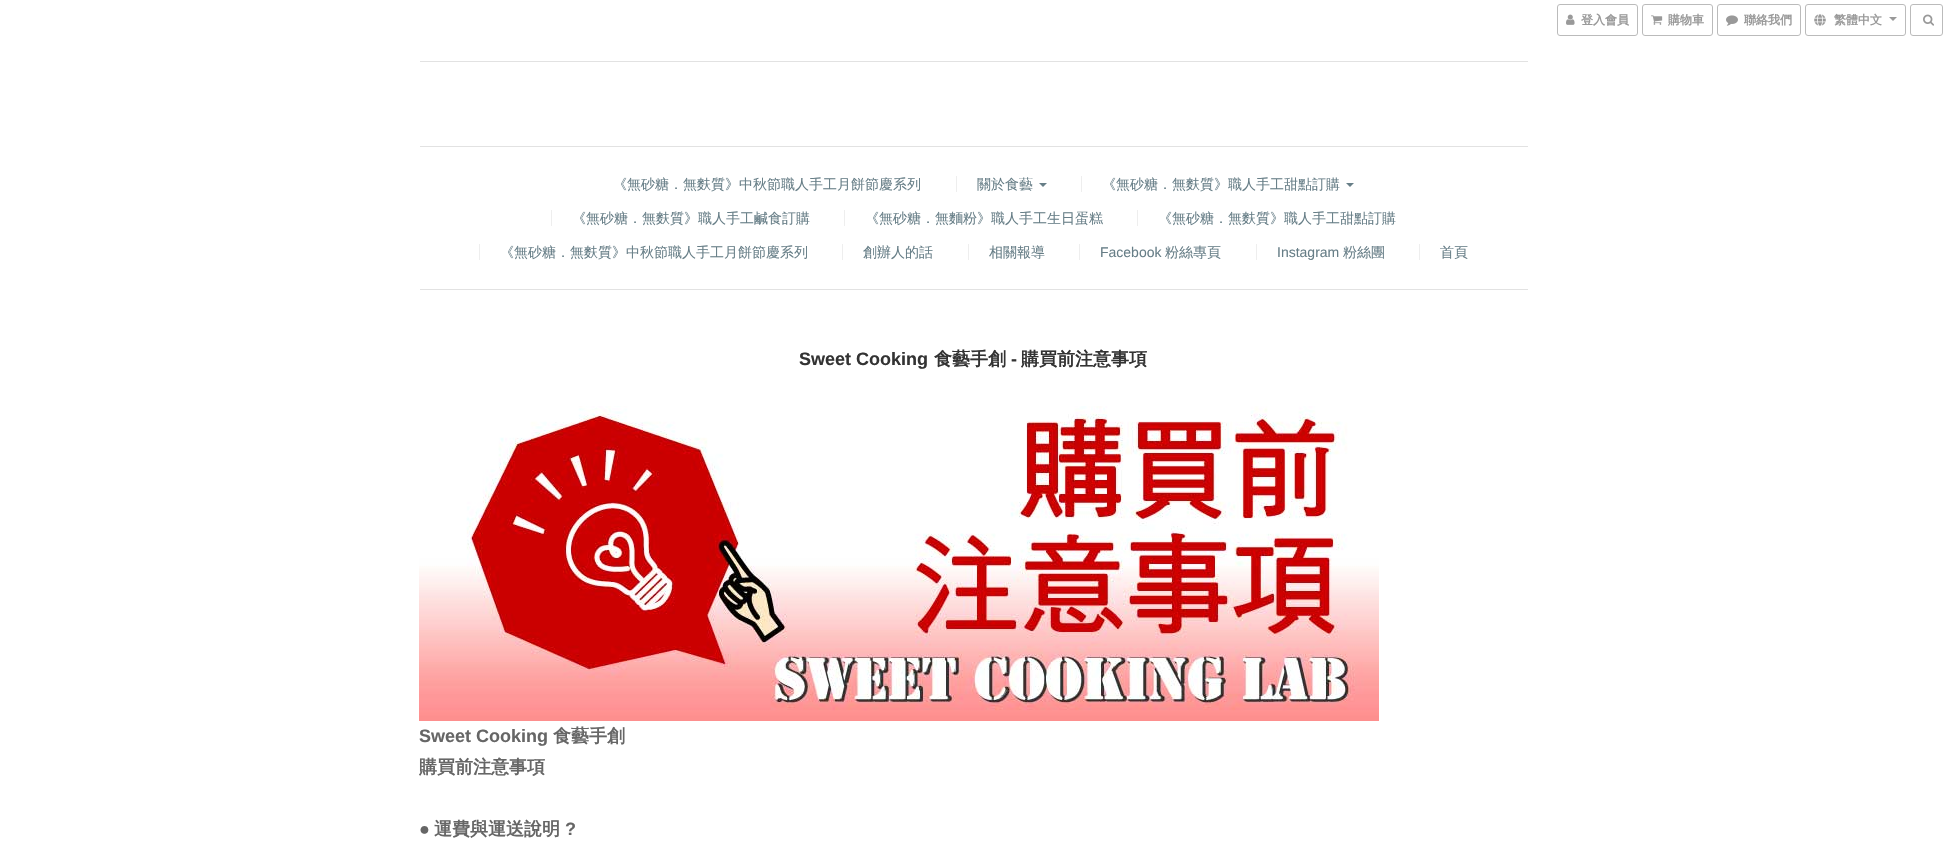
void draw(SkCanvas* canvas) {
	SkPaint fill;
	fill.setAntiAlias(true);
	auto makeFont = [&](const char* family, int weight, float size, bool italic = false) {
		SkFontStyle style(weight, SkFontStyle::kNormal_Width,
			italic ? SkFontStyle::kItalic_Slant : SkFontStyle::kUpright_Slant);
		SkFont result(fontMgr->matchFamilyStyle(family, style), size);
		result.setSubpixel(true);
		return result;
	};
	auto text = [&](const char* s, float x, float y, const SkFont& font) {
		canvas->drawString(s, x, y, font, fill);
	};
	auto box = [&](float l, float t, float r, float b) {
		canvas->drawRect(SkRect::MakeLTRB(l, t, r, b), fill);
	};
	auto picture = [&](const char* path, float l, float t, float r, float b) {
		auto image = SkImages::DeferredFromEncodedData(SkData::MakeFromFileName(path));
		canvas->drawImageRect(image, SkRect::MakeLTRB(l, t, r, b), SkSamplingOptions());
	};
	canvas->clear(0xFFFFFFFF);
	fill.setStyle(SkPaint::kStroke_Style);
	fill.setStrokeWidth(1);
	fill.setColor(0xFFBBBBBB);
	canvas->drawRoundRect(SkRect::MakeLTRB(1557.5f, 4.5f, 1637.5f, 35.5f), 2.5f, 2.5f, fill);
	picture("image0.png", 1566, 14, 1575, 25);
	canvas->drawRoundRect(SkRect::MakeLTRB(1642.5f, 4.5f, 1712.5f, 35.5f), 2.5f, 2.5f, fill);
	picture("image1.png", 1651, 15, 1663, 25);
	canvas->drawRoundRect(SkRect::MakeLTRB(1717.5f, 4.5f, 1800.5f, 35.5f), 2.5f, 2.5f, fill);
	picture("image2.png", 1726, 15, 1738, 26);
	canvas->drawRoundRect(SkRect::MakeLTRB(1805.5f, 4.5f, 1905.5f, 35.5f), 2.5f, 2.5f, fill);
	picture("image3.png", 1814, 14, 1826, 26);
	fill.setStyle(SkPaint::kFill_Style);
	fill.setColor(0xFF999999);
	canvas->drawPath(SkPathBuilder().moveTo(1889, 17).lineTo(1897, 17).lineTo(1893, 21).close().detach(), fill);
	fill.setStyle(SkPaint::kStroke_Style);
	fill.setColor(0xFFBBBBBB);
	canvas->drawRoundRect(SkRect::MakeLTRB(1910.5f, 4.5f, 1942.5f, 35.5f), 2.5f, 2.5f, fill);
	picture("image4.png", 1923, 14, 1934, 26);
	fill.setStyle(SkPaint::kFill_Style);
	fill.setColor(0xFFE2E2E2);
	box(420, 61, 1528, 62);
	box(420, 146, 1528, 147);
	box(420, 289, 1528, 290);
	fill.setColor(0xFFEEEEEE);
	box(956, 176, 957, 192);
	fill.setColor(0xFF677E87);
	canvas->drawPath(SkPathBuilder().moveTo(1039, 183).lineTo(1047, 183).lineTo(1043, 187).close().detach(), fill);
	fill.setColor(0xFFEEEEEE);
	box(1081, 176, 1082, 192);
	fill.setColor(0xFF677E87);
	canvas->drawPath(SkPathBuilder().moveTo(1346, 183).lineTo(1354, 183).lineTo(1350, 187).close().detach(), fill);
	fill.setColor(0xFFEEEEEE);
	box(551, 210, 552, 226);
	box(844, 210, 845, 226);
	box(1137, 210, 1138, 226);
	box(479, 244, 480, 260);
	box(842, 244, 843, 260);
	box(968, 244, 969, 260);
	box(1079, 244, 1080, 260);
	box(1256, 244, 1257, 260);
	box(1419, 244, 1420, 260);
	picture("image5.png", 419, 406, 1379, 721);
	auto font1 = makeFont("WenQuanYi Zen Hei", 700, 12);
	fill.setColor(0xFF999999);
	text("登入會員", 1581, 24, font1);
	text("購物車", 1668, 24, font1);
	text("聯絡我們", 1744, 24, font1);
	text("繁體中文", 1834, 24, font1);
	auto font2 = makeFont("WenQuanYi Zen Hei", 500, 14);
	fill.setColor(0xFF677E87);
	text("《無砂糖．無麩質》中秋節職人手工月餅節慶系列", 613, 189, font2);
	text("關於食藝", 977, 189, font2);
	text("《無砂糖．無麩質》職人手工甜點訂購", 1102, 189, font2);
	text("《無砂糖．無麩質》職人手工鹹食訂購", 572, 223, font2);
	text("《無砂糖．無麵粉》職人手工生日蛋糕", 865, 223, font2);
	text("《無砂糖．無麩質》職人手工甜點訂購", 1158, 223, font2);
	text("《無砂糖．無麩質》中秋節職人手工月餅節慶系列", 500, 257, font2);
	text("創辦人的話", 863, 257, font2);
	text("相關報導", 989, 257, font2);
	auto font3 = makeFont("Liberation Sans", 400, 14);
	text("Facebook", 1100, 257, font3);
	text("粉絲專頁", 1165, 257, font2);
	text("Instagram", 1277, 257, font3);
	text("粉絲團", 1343, 257, font2);
	text("首頁", 1440, 257, font2);
	auto font4 = makeFont("Liberation Sans", 700, 18);
	fill.setColor(0xFF333333);
	text("Sweet Cooking", 799, 365, font4);
	auto font5 = makeFont("WenQuanYi Zen Hei", 700, 18);
	text("食藝手創", 934, 365, font5);
	text("-", 1011, 365, font4);
	text("購買前注意事項", 1021, 365, font5);
	fill.setColor(0xFF666666);
	text("Sweet Cooking", 419, 742, font4);
	text("食藝手創", 553, 742, font5);
	text("購買前注意事項", 419, 773, font5);
	text("●", 419, 835, font4);
	text("運費與運送說明", 434, 835, font5);
	text("?", 565, 835, font4);
}
